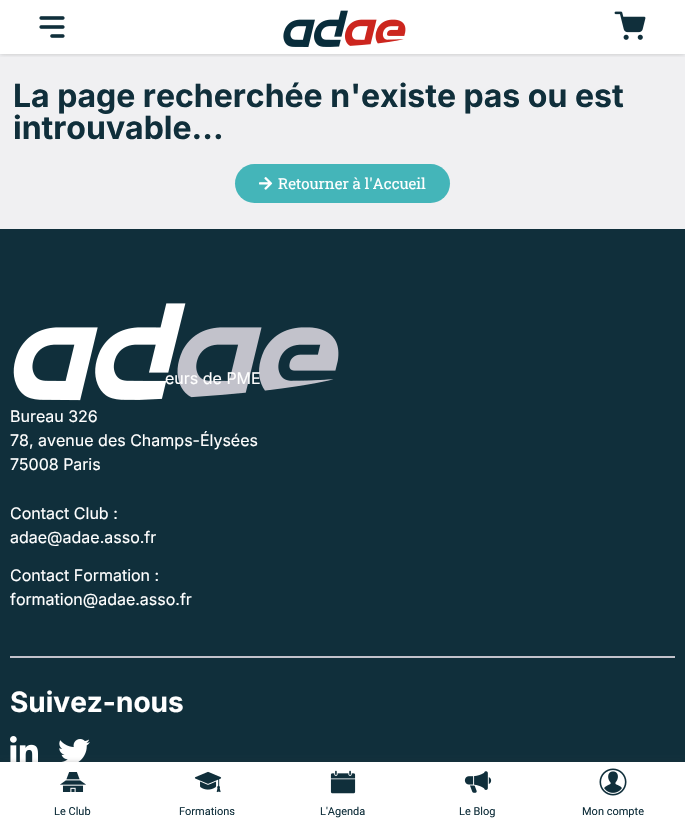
void draw(SkCanvas* canvas) {
	SkPaint fill;
	fill.setAntiAlias(true);
	auto makeFont = [&](const char* family, int weight, float size, bool italic = false) {
		SkFontStyle style(weight, SkFontStyle::kNormal_Width,
			italic ? SkFontStyle::kItalic_Slant : SkFontStyle::kUpright_Slant);
		SkFont result(fontMgr->matchFamilyStyle(family, style), size);
		result.setSubpixel(true);
		return result;
	};
	auto text = [&](const char* s, float x, float y, const SkFont& font) {
		canvas->drawString(s, x, y, font, fill);
	};
	auto box = [&](float l, float t, float r, float b) {
		canvas->drawRect(SkRect::MakeLTRB(l, t, r, b), fill);
	};
	auto roundBox = [&](float l, float t, float r, float b, float radius) {
		canvas->drawRoundRect(SkRect::MakeLTRB(l, t, r, b), radius, radius, fill);
	};
	auto picture = [&](const char* path, float l, float t, float r, float b) {
		auto image = SkImages::DeferredFromEncodedData(SkData::MakeFromFileName(path));
		canvas->drawImageRect(image, SkRect::MakeLTRB(l, t, r, b), SkSamplingOptions());
	};
	canvas->clear(0xFFFFFFFF);
	fill.setColor(0xFFF0F0F2);
	box(0, 54, 685, 229);
	canvas->save();
	canvas->clipRect(SkRect::MakeLTRB(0, 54, 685, 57));
	fill.setColor(0x40313338);
	fill.setMaskFilter(SkMaskFilter::MakeBlur(kNormal_SkBlurStyle, 2.5f));
	canvas->drawRect(SkRect::MakeLTRB(0, 0, 685, 54), fill);
	fill.setMaskFilter(nullptr);
	canvas->restore();
	picture("image0.png", 39, 16, 65, 38);
	picture("image1.png", 283, 10, 406, 47);
	picture("image2.png", 614, 11, 646, 40);
	fill.setColor(0xFF44B5B9);
	roundBox(235, 164, 450, 203, 19.5f);
	picture("image3.png", 259, 177, 273, 190);
	fill.setColor(0xFF102F3B);
	box(0, 229, 685, 762);
	picture("image4.png", 13, 303, 339, 401);
	fill.setColor(0xFFC2C2CB);
	box(10, 656, 675, 658);
	picture("image5.png", 10, 736, 38, 762);
	picture("image6.png", 59, 739, 90, 762);
	fill.setColor(0x40313338);
	fill.setMaskFilter(SkMaskFilter::MakeBlur(kNormal_SkBlurStyle, 2.5f));
	canvas->drawRect(SkRect::MakeLTRB(0, 762, 685, 823), fill);
	fill.setMaskFilter(nullptr);
	fill.setColor(0xFFFFFFFF);
	box(0, 762, 685, 823);
	picture("image7.png", 60, 772, 86, 792);
	picture("image8.png", 194, 771, 222, 793);
	picture("image9.png", 330, 770, 356, 794);
	picture("image10.png", 464, 771, 492, 793);
	picture("image11.png", 599, 768, 627, 796);
	auto font1 = makeFont("Inter", 700, 32);
	fill.setColor(0xFF102F3B);
	text("La page recherchée n'existe pas ou est", 13, 107, font1);
	text("introuvable...", 13, 139, font1);
	auto font2 = makeFont("Roboto Slab", 400, 15);
	fill.setColor(0xFFFFFFFF);
	text("Retourner à l'Accueil", 278, 189, font2);
	auto font3 = makeFont("Inter", 400, 16);
	text("eurs de PME", 165, 384, font3);
	text("Bureau 326", 10, 422, font3);
	text("78, avenue des Champs-Élysées", 10, 446, font3);
	text("75008 Paris", 10, 470, font3);
	text("Contact Club :", 10, 519, font3);
	text("adae@adae.asso.fr", 10, 543, font3);
	text("Contact Formation :", 10, 581, font3);
	text("formation@adae.asso.fr", 10, 605, font3);
	auto font4 = makeFont("Inter", 700, 28);
	text("Suivez-nous", 10, 712, font4);
	auto font5 = makeFont("Roboto", 400, 11);
	fill.setColor(0xFF102F3B);
	text("Le Club", 54, 815, font5);
	text("Formations", 179, 815, font5);
	text("L'Agenda", 320, 815, font5);
	text("Le Blog", 459, 815, font5);
	text("Mon compte", 582, 815, font5);
}
